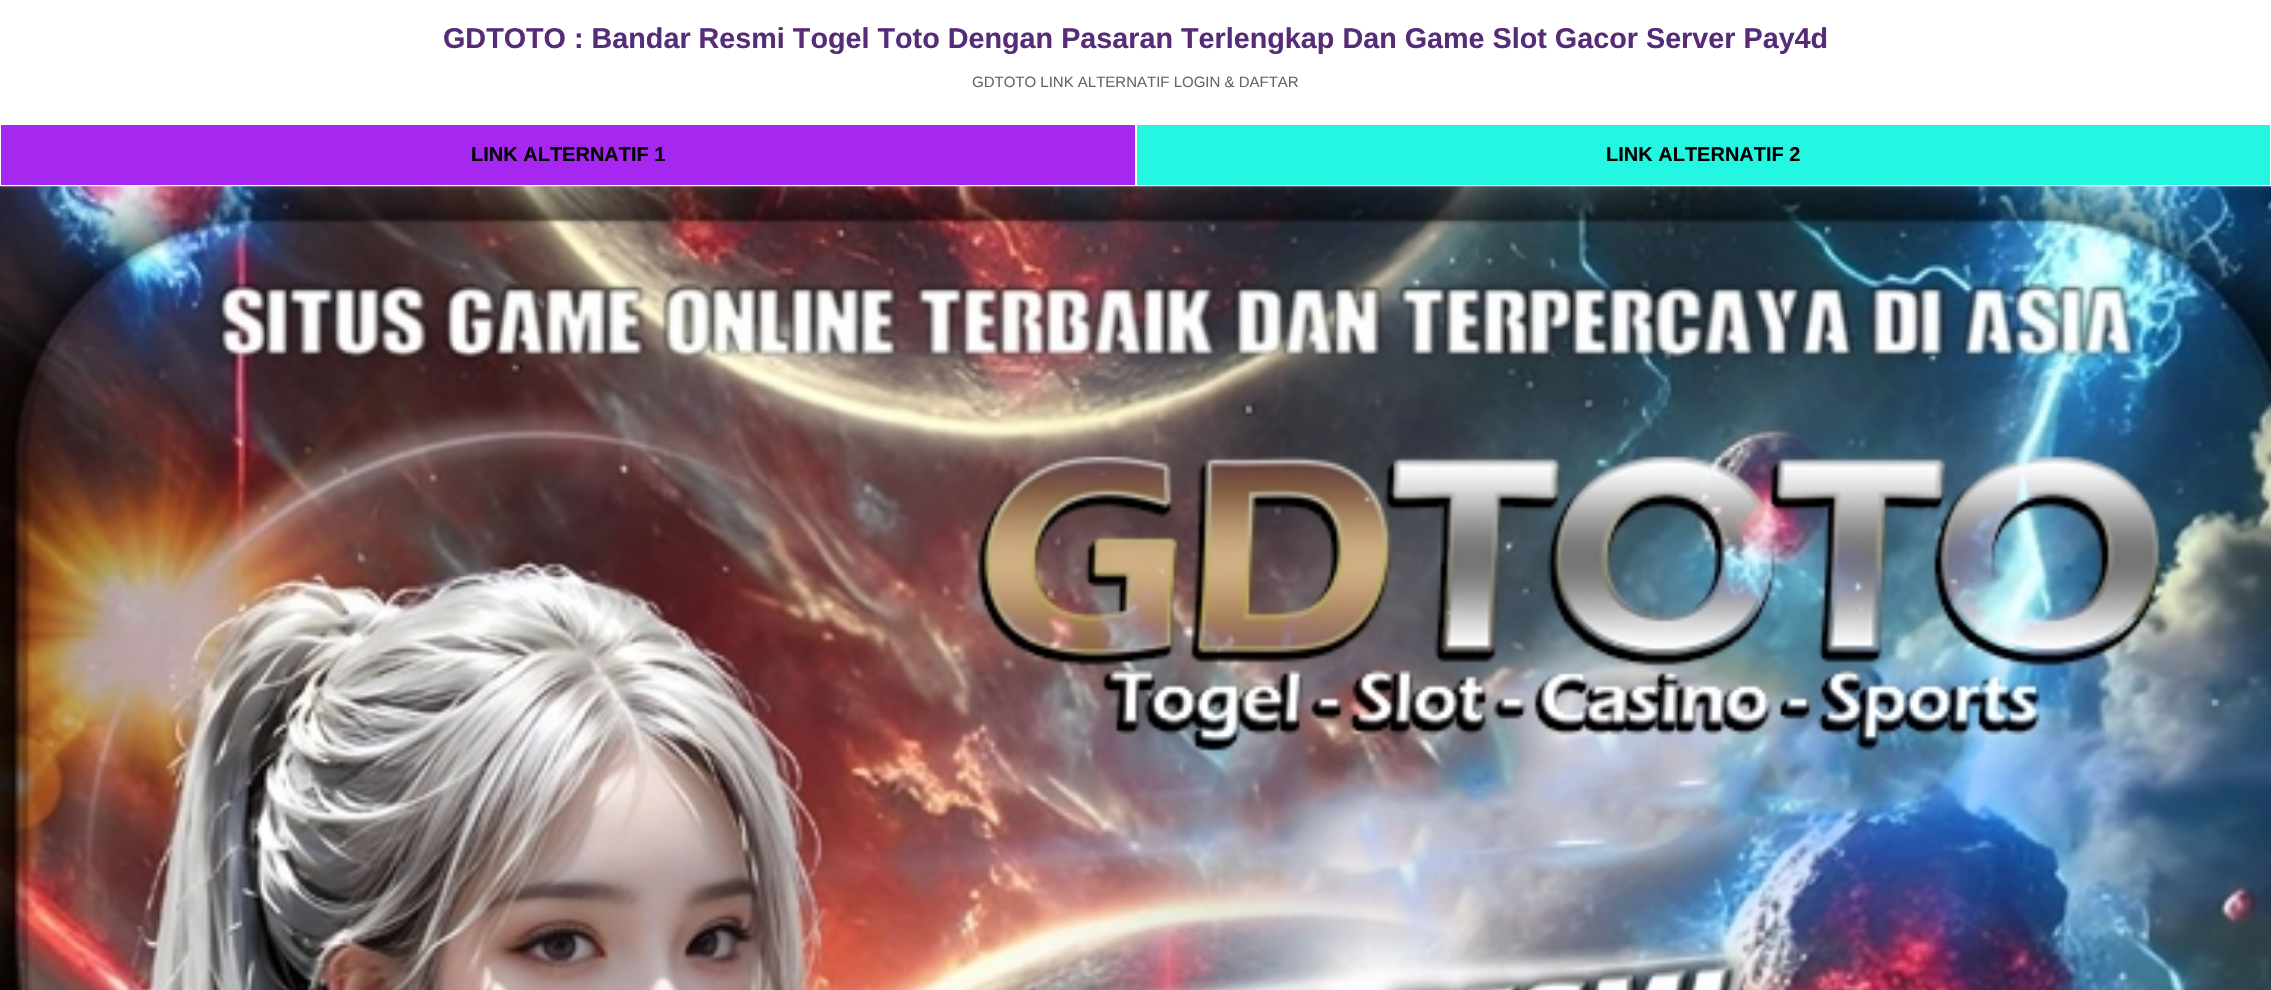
void draw(SkCanvas* canvas) {
	SkPaint fill;
	fill.setAntiAlias(true);
	auto makeFont = [&](const char* family, int weight, float size, bool italic = false) {
		SkFontStyle style(weight, SkFontStyle::kNormal_Width,
			italic ? SkFontStyle::kItalic_Slant : SkFontStyle::kUpright_Slant);
		SkFont result(fontMgr->matchFamilyStyle(family, style), size);
		result.setSubpixel(true);
		return result;
	};
	auto text = [&](const char* s, float x, float y, const SkFont& font) {
		canvas->drawString(s, x, y, font, fill);
	};
	auto box = [&](float l, float t, float r, float b) {
		canvas->drawRect(SkRect::MakeLTRB(l, t, r, b), fill);
	};
	auto picture = [&](const char* path, float l, float t, float r, float b) {
		auto image = SkImages::DeferredFromEncodedData(SkData::MakeFromFileName(path));
		canvas->drawImageRect(image, SkRect::MakeLTRB(l, t, r, b), SkSamplingOptions());
	};
	canvas->clear(0xFFFFFFFF);
	fill.setColor(0xFFA627EF);
	box(1, 125, 1135, 185);
	fill.setColor(0xFF23F7E1);
	box(1137, 125, 2270, 185);
	picture("image0.png", 0, 186, 2271, 990);
	auto font1 = makeFont("Liberation Sans", 700, 28.75f);
	fill.setColor(0xFF562B77);
	text("GDTOTO : Bandar Resmi Togel Toto Dengan Pasaran Terlengkap Dan Game Slot Gacor Server Pay4d", 443, 48, font1);
	auto font2 = makeFont("Liberation Sans", 400, 15);
	fill.setColor(0xFF666666);
	text("GDTOTO LINK ALTERNATIF LOGIN & DAFTAR", 972, 87, font2);
	auto font3 = makeFont("Liberation Sans", 700, 20);
	fill.setColor(0xFF000000);
	text("LINK ALTERNATIF 1", 471, 161, font3);
	text("LINK ALTERNATIF 2", 1606, 161, font3);
}
